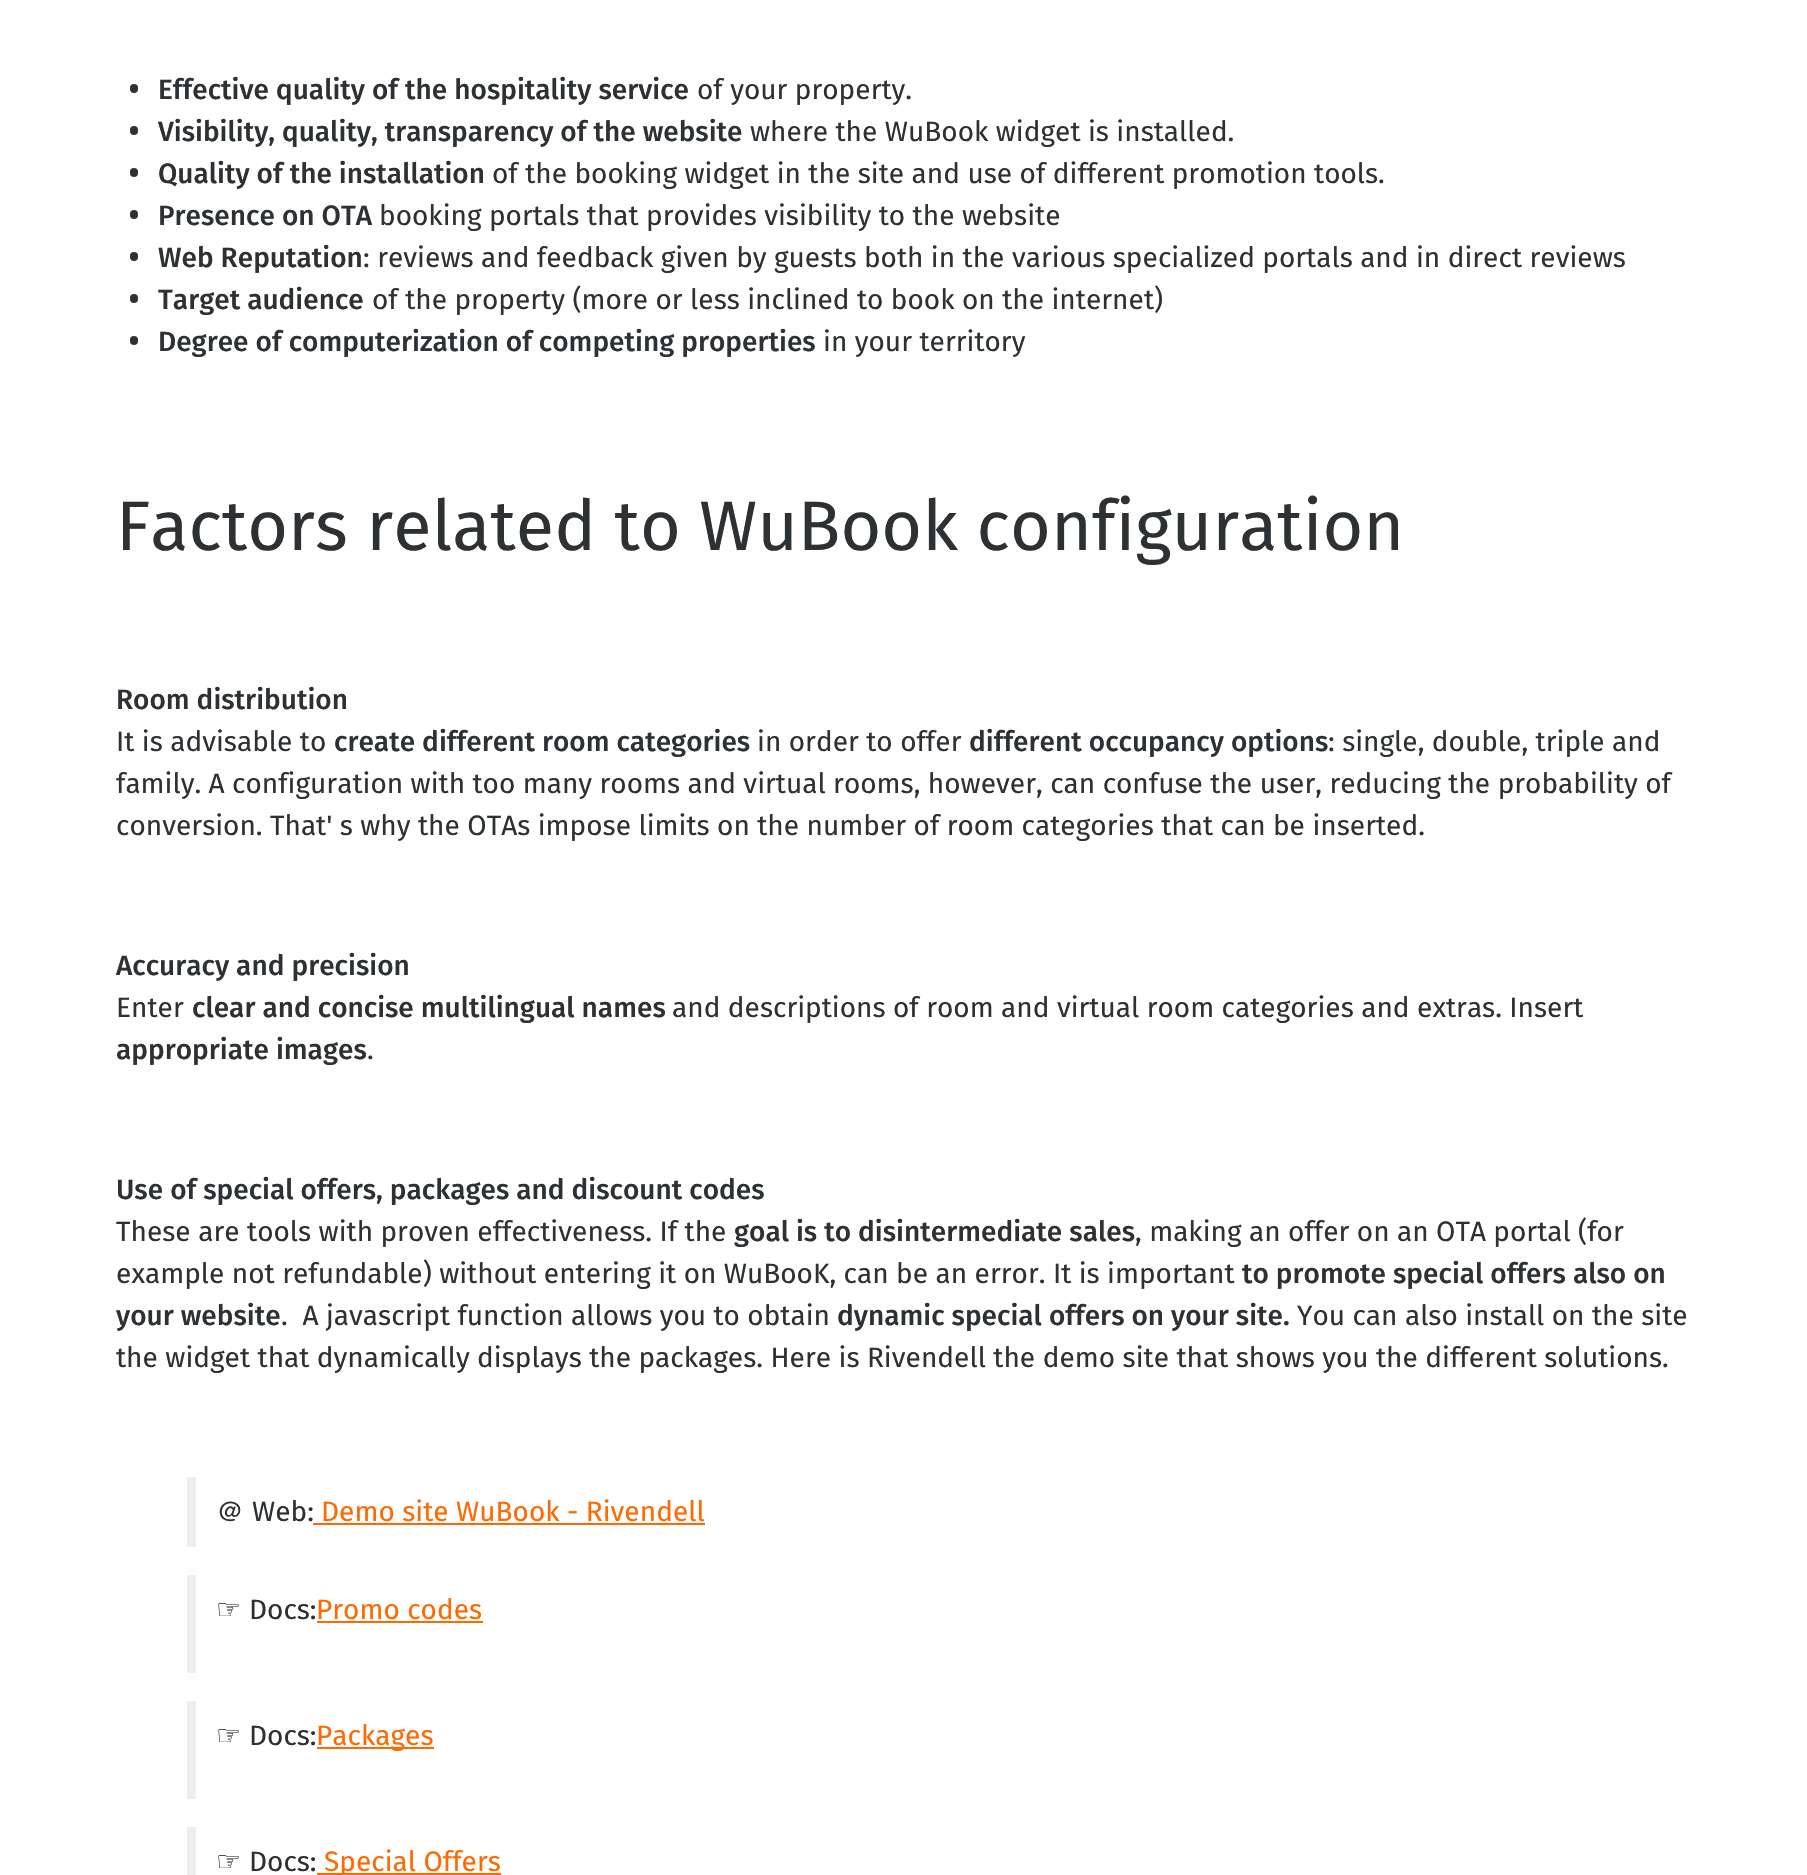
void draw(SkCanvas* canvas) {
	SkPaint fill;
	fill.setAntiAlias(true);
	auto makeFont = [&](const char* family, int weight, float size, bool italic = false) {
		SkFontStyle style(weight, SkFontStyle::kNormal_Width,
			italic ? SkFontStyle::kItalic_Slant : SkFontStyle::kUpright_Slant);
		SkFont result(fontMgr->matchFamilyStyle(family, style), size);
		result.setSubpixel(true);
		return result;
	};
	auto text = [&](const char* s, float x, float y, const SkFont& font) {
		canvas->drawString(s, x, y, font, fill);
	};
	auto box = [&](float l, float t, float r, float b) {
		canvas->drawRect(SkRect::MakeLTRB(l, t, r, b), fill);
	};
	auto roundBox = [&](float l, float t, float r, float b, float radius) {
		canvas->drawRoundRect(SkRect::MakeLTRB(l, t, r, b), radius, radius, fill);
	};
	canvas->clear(0xFFFFFFFF);
	fill.setColor(0xFF2D3134);
	roundBox(130, 84, 138, 93, 4);
	roundBox(130, 126, 138, 135, 4);
	roundBox(130, 168, 138, 177, 4);
	roundBox(130, 210, 138, 219, 4);
	roundBox(130, 252, 138, 261, 4);
	roundBox(130, 294, 138, 303, 4);
	roundBox(130, 336, 138, 345, 4);
	fill.setColor(0xFFEEEEEE);
	box(187, 1477, 196, 1547);
	fill.setColor(0xFFFF6900);
	box(313, 1523, 705, 1525);
	fill.setColor(0xFFEEEEEE);
	box(187, 1575, 196, 1673);
	fill.setColor(0xFFFF6900);
	box(317, 1621, 483, 1623);
	fill.setColor(0xFFEEEEEE);
	box(187, 1701, 196, 1799);
	fill.setColor(0xFFFF6900);
	box(317, 1747, 434, 1749);
	fill.setColor(0xFFEEEEEE);
	box(187, 1827, 196, 1875);
	fill.setColor(0xFFFF6900);
	box(317, 1873, 501, 1875);
	auto font1 = makeFont("Fira Sans", 500, 28);
	fill.setColor(0xFF2D3134);
	text("Effective quality of the hospitality service", 158, 99, font1);
	auto font2 = makeFont("Fira Sans", 400, 28);
	text("of your property.", 697, 99, font2);
	text("Visibility, quality, transparency of the website", 158, 141, font1);
	text("where the WuBook widget is installed.", 750, 141, font2);
	text("Quality of the installation", 158, 183, font1);
	text("of the booking widget in the site and use of different promotion tools.", 492, 183, font2);
	text("Presence on OTA", 158, 225, font1);
	text("booking portals that provides visibility to the website", 379, 225, font2);
	text("Web Reputation", 158, 267, font1);
	text(": reviews and feedback given by guests both in the various specialized portals and in direct reviews", 363, 267, font2);
	text("Target audience", 158, 309, font1);
	text("of the property (more or less inclined to book on the internet)", 372, 309, font2);
	text("Degree of computerization of competing properties", 158, 351, font1);
	text("in your territory", 823, 351, font2);
	auto font3 = makeFont("Fira Sans", 400, 70);
	text("Factors related to WuBook configuration", 116, 550, font3);
	text("Room distribution", 116, 709, font1);
	text("It is advisable to", 116, 751, font2);
	text("create different room categories", 334, 751, font1);
	text("in order to offer", 757, 751, font2);
	text("different occupancy options", 969, 751, font1);
	text(": single, double, triple and", 1328, 751, font2);
	text("family. A configuration with too many rooms and virtual rooms, however, can confuse the user, reducing the probability of", 116, 793, font2);
	text("conversion. That' s why the OTAs impose limits on the number of room categories that can be inserted.", 116, 835, font2);
	text("Accuracy and precision", 116, 975, font1);
	text("Enter", 116, 1017, font2);
	text("clear and concise multilingual names", 192, 1017, font1);
	text("and descriptions of room and virtual room categories and extras. Insert", 672, 1017, font2);
	text("appropriate images", 116, 1059, font1);
	text(".", 367, 1059, font2);
	text("Use of special offers, packages and discount codes", 116, 1199, font1);
	text("These are tools with proven effectiveness. If the", 116, 1241, font2);
	text("goal is to disintermediate sales", 734, 1241, font1);
	text(", making an offer on an OTA portal (for", 1135, 1241, font2);
	text("example not refundable) without entering it on WuBooK, can be an error. It is important", 116, 1283, font2);
	text("to promote special offers also on", 1242, 1283, font1);
	text("your website", 116, 1325, font1);
	text(".  A javascript function allows you to obtain", 281, 1325, font2);
	text("dynamic special offers on your site.", 837, 1325, font1);
	text("You can also install on the site", 1297, 1325, font2);
	text("the widget that dynamically displays the packages. Here is Rivendell the demo site that shows you the different solutions.", 116, 1367, font2);
	auto font4 = makeFont("WenQuanYi Zen Hei", 500, 28);
	text("＠", 216, 1521, font4);
	text("Web:", 252, 1521, font2);
	fill.setColor(0xFFFF6900);
	text("Demo site WuBook - Rivendell", 321, 1521, font2);
	auto font5 = makeFont("DejaVu Sans", 400, 28);
	fill.setColor(0xFF2D3134);
	text("☞", 216, 1619, font5);
	text("Docs:", 249, 1619, font2);
	fill.setColor(0xFFFF6900);
	text("Promo codes", 316, 1619, font2);
	fill.setColor(0xFF2D3134);
	text("☞", 216, 1745, font5);
	text("Docs:", 249, 1745, font2);
	fill.setColor(0xFFFF6900);
	text("Packages", 316, 1745, font2);
	fill.setColor(0xFF2D3134);
	text("☞", 216, 1871, font5);
	text("Docs:", 249, 1871, font2);
	fill.setColor(0xFFFF6900);
	text("Special Offers", 324, 1871, font2);
}
